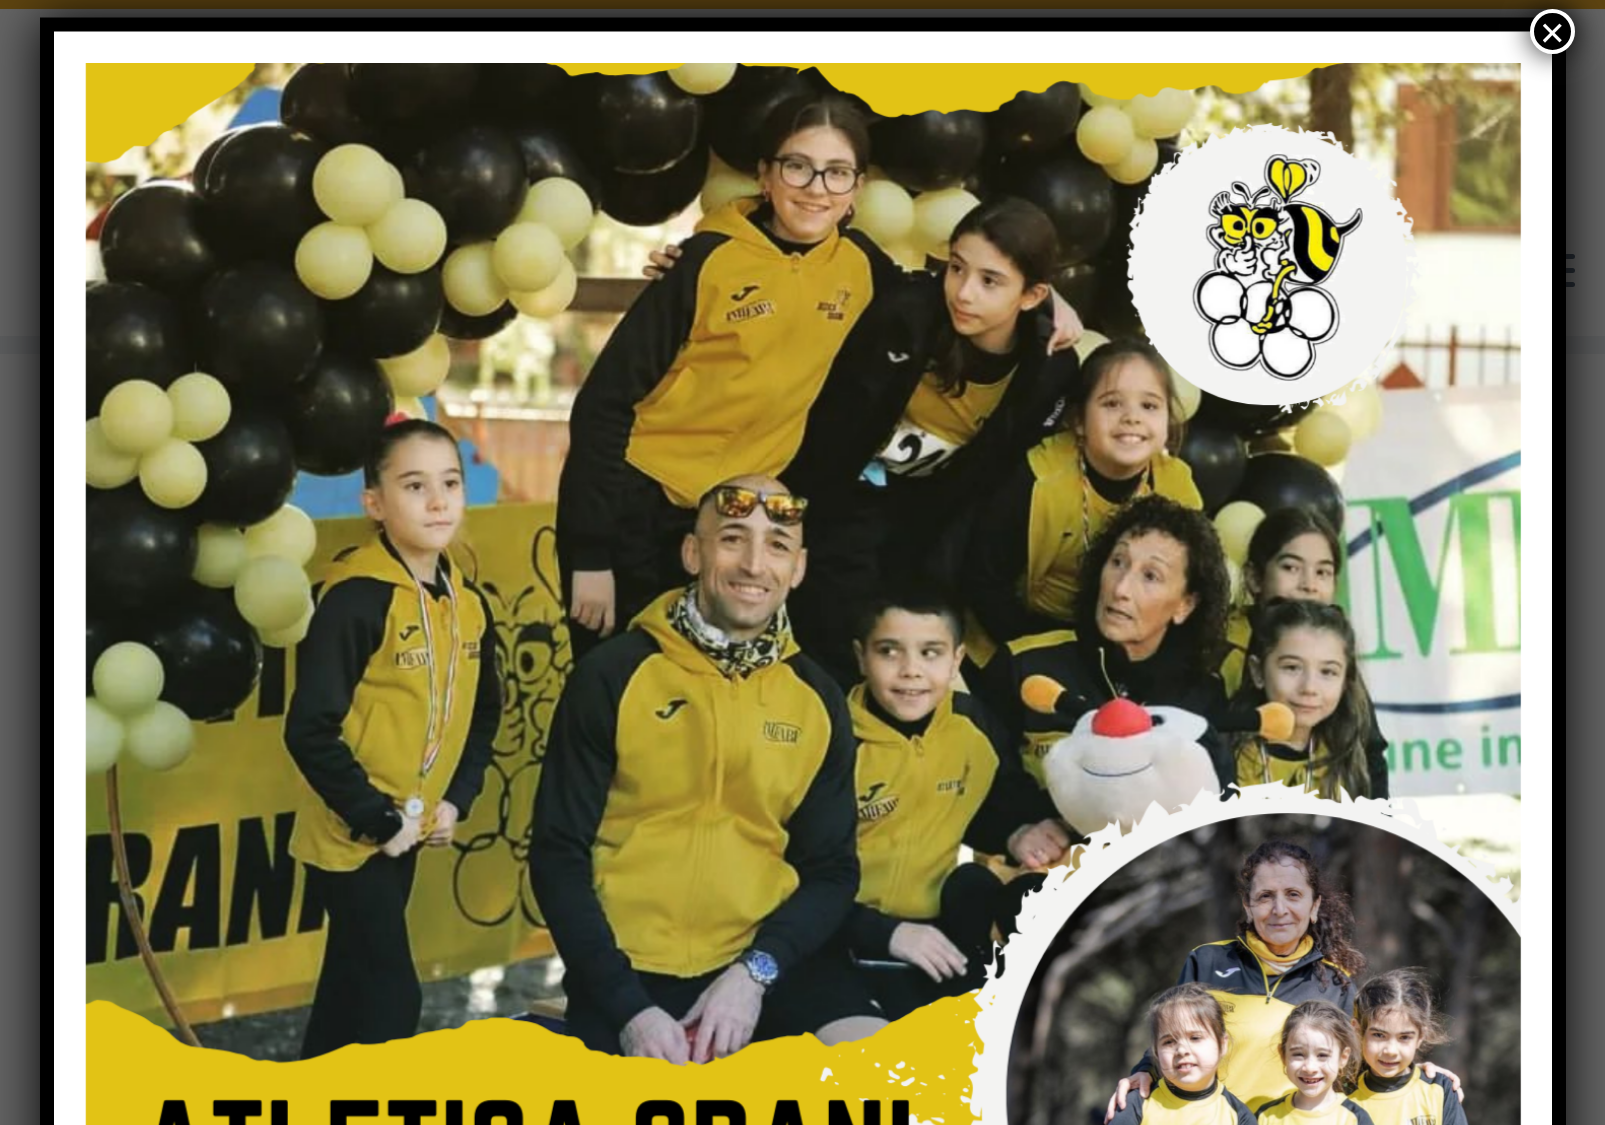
void draw(SkCanvas* canvas) {
	SkPaint fill;
	fill.setAntiAlias(true);
	auto makeFont = [&](const char* family, int weight, float size, bool italic = false) {
		SkFontStyle style(weight, SkFontStyle::kNormal_Width,
			italic ? SkFontStyle::kItalic_Slant : SkFontStyle::kUpright_Slant);
		SkFont result(fontMgr->matchFamilyStyle(family, style), size);
		result.setSubpixel(true);
		return result;
	};
	auto text = [&](const char* s, float x, float y, const SkFont& font) {
		canvas->drawString(s, x, y, font, fill);
	};
	auto box = [&](float l, float t, float r, float b) {
		canvas->drawRect(SkRect::MakeLTRB(l, t, r, b), fill);
	};
	auto roundBox = [&](float l, float t, float r, float b, float radius) {
		canvas->drawRoundRect(SkRect::MakeLTRB(l, t, r, b), radius, radius, fill);
	};
	auto picture = [&](const char* path, float l, float t, float r, float b) {
		auto image = SkImages::DeferredFromEncodedData(SkData::MakeFromFileName(path));
		canvas->drawImageRect(image, SkRect::MakeLTRB(l, t, r, b), SkSamplingOptions());
	};
	canvas->clear(0xFF646464);
	fill.setColor(0xFF5D430F);
	box(0, 0, 1605, 9);
	fill.setColor(0xFF5D5E5F);
	box(0, 336, 1605, 354);
	fill.setColor(0xFF262C34);
	roundBox(1523, 254, 1575, 259, 2.5f);
	roundBox(1523, 268, 1575, 273, 2.5f);
	roundBox(1523, 282, 1575, 287, 2.5f);
	fill.setColor(0xFF020202);
	fill.setMaskFilter(SkMaskFilter::MakeBlur(kNormal_SkBlurStyle, 26));
	canvas->drawRoundRect(SkRect::MakeLTRB(40, 18, 1566, 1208), 5, 5, fill);
	fill.setMaskFilter(nullptr);
	fill.setColor(0xFFFFFFFF);
	box(54, 31, 1552, 1125);
	fill.setStyle(SkPaint::kStroke_Style);
	fill.setStrokeWidth(14);
	fill.setColor(0xFF000000);
	canvas->drawPath(SkPathBuilder().moveTo(47, 24.5f).lineTo(1559, 24.5f).lineTo(1559, 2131.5f).lineTo(47, 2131.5f).close().detach(), fill);
	picture("image0.png", 85, 63, 1522, 1125);
	fill.setStyle(SkPaint::kFill_Style);
	fill.setColor(0xBF020202);
	fill.setMaskFilter(SkMaskFilter::MakeBlur(kNormal_SkBlurStyle, 13));
	canvas->drawRoundRect(SkRect::MakeLTRB(1528, 7, 1577, 56), 24.5f, 24.5f, fill);
	fill.setMaskFilter(nullptr);
	fill.setColor(0xFF000000);
	canvas->drawCircle(1552.5f, 31.5f, 20.5f, fill);
	fill.setStyle(SkPaint::kStroke_Style);
	fill.setStrokeWidth(4);
	fill.setColor(0xFFFFFFFF);
	canvas->drawCircle(1552.5f, 31.5f, 20.5f, fill);
	auto font1 = makeFont("Liberation Sans", 400, 42);
	fill.setStyle(SkPaint::kFill_Style);
	text("×", 1540, 47, font1);
}
